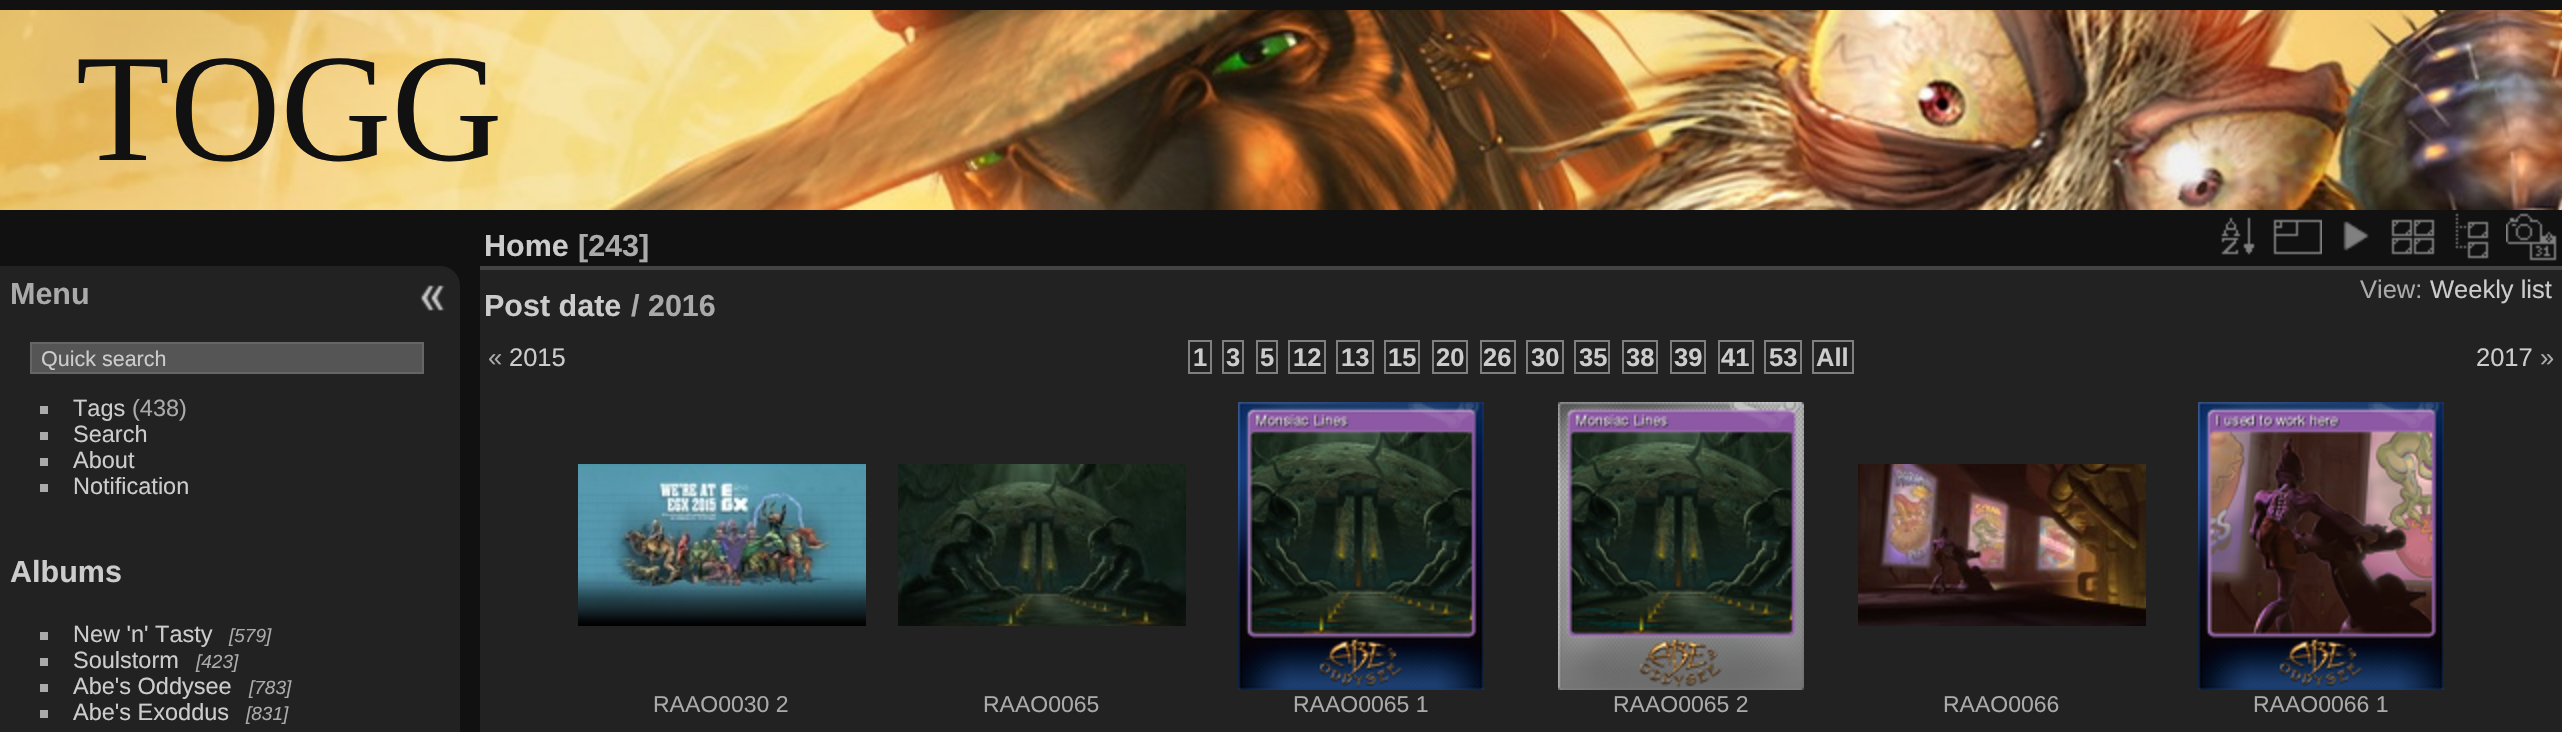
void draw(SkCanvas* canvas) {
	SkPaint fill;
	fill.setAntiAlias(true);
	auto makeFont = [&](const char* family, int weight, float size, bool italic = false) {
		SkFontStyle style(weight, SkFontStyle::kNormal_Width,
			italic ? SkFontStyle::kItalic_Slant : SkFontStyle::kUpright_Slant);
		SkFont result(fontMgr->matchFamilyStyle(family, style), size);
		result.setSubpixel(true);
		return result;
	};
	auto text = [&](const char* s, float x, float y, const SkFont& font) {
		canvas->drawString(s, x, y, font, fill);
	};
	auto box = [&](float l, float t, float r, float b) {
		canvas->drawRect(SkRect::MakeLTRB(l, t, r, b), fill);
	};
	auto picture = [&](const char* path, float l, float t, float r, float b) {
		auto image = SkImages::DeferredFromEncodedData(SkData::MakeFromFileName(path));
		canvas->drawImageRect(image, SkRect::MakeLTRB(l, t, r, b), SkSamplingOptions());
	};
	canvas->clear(0xFF111111);
	picture("image0.png", 0, 10, 2562, 210);
	fill.setColor(0xFF222222);
	canvas->drawPath(SkPathBuilder().moveTo(0, 266).lineTo(440, 266).cubicTo(451, 266, 460, 275, 460, 286).lineTo(460, 732).cubicTo(460, 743, 451, 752, 440, 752).lineTo(0, 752).close().detach(), fill);
	fill.setColor(0xFF555555);
	canvas->drawRect(SkRect::MakeLTRB(31, 343, 423, 373), fill);
	fill.setStyle(SkPaint::kStroke_Style);
	fill.setStrokeWidth(2);
	fill.setColor(0xFF666666);
	canvas->drawRect(SkRect::MakeLTRB(31, 343, 423, 373), fill);
	fill.setStyle(SkPaint::kFill_Style);
	fill.setColor(0xFFAAAAAA);
	box(40, 406, 48, 414);
	box(40, 432, 48, 440);
	box(40, 458, 48, 466);
	box(40, 484, 48, 492);
	box(40, 632, 48, 640);
	box(40, 658, 48, 666);
	box(40, 684, 48, 692);
	box(40, 710, 48, 718);
	picture("image1.png", 420, 285, 445, 311);
	fill.setColor(0xFF222222);
	box(480, 270, 2562, 732);
	picture("image2.png", 2221, 217, 2255, 255);
	picture("image3.png", 2273, 219, 2322, 255);
	picture("image4.png", 2343, 221, 2369, 251);
	picture("image5.png", 2391, 219, 2435, 255);
	picture("image6.png", 2455, 213, 2489, 259);
	picture("image7.png", 2506, 213, 2557, 261);
	fill.setColor(0xFF444444);
	box(480, 266, 2562, 270);
	fill.setStyle(SkPaint::kStroke_Style);
	fill.setColor(0xFF808080);
	canvas->drawRect(SkRect::MakeLTRB(1189, 341, 1211, 373), fill);
	canvas->drawRect(SkRect::MakeLTRB(1223, 341, 1243, 373), fill);
	canvas->drawRect(SkRect::MakeLTRB(1257, 341, 1277, 373), fill);
	canvas->drawRect(SkRect::MakeLTRB(1289, 341, 1325, 373), fill);
	canvas->drawRect(SkRect::MakeLTRB(1337, 341, 1373, 373), fill);
	canvas->drawRect(SkRect::MakeLTRB(1385, 341, 1419, 373), fill);
	canvas->drawRect(SkRect::MakeLTRB(1433, 341, 1467, 373), fill);
	canvas->drawRect(SkRect::MakeLTRB(1481, 341, 1515, 373), fill);
	canvas->drawRect(SkRect::MakeLTRB(1527, 341, 1563, 373), fill);
	canvas->drawRect(SkRect::MakeLTRB(1575, 341, 1609, 373), fill);
	canvas->drawRect(SkRect::MakeLTRB(1623, 341, 1657, 373), fill);
	canvas->drawRect(SkRect::MakeLTRB(1671, 341, 1705, 373), fill);
	canvas->drawRect(SkRect::MakeLTRB(1719, 341, 1753, 373), fill);
	canvas->drawRect(SkRect::MakeLTRB(1765, 341, 1801, 373), fill);
	canvas->drawRect(SkRect::MakeLTRB(1813, 341, 1853, 373), fill);
	picture("image8.png", 578, 464, 866, 626);
	picture("image9.png", 898, 464, 1186, 626);
	picture("image10.png", 1238, 402, 1484, 690);
	picture("image11.png", 1558, 402, 1804, 690);
	picture("image12.png", 1858, 464, 2146, 626);
	picture("image13.png", 2198, 402, 2444, 690);
	auto font1 = makeFont("Liberation Serif", 400, 153.5f);
	fill.setStyle(SkPaint::kFill_Style);
	fill.setColor(0xFF111111);
	text("TOGG", 76, 160, font1);
	auto font2 = makeFont("Liberation Sans", 700, 30.5f);
	fill.setColor(0xFFAAAAAA);
	text("Menu", 10, 304, font2);
	auto font3 = makeFont("Liberation Sans", 400, 21.5f);
	fill.setColor(0xFFCCCCCC);
	text("Quick search", 41, 366, font3);
	auto font4 = makeFont("Liberation Sans", 400, 23.5f);
	text("Tags", 73, 416, font4);
	fill.setColor(0xFFAAAAAA);
	text("(438)", 132, 416, font4);
	fill.setColor(0xFFCCCCCC);
	text("Search", 73, 442, font4);
	text("About", 73, 468, font4);
	text("Notification", 73, 494, font4);
	text("Albums", 10, 582, font2);
	text("New 'n' Tasty", 73, 642, font4);
	auto font5 = makeFont("Liberation Sans", 400, 19, true);
	fill.setColor(0xFFAAAAAA);
	text("[579]", 229, 642, font5);
	fill.setColor(0xFFCCCCCC);
	text("Soulstorm", 73, 668, font4);
	fill.setColor(0xFFAAAAAA);
	text("[423]", 196, 668, font5);
	fill.setColor(0xFFCCCCCC);
	text("Abe's Oddysee", 73, 694, font4);
	fill.setColor(0xFFAAAAAA);
	text("[783]", 249, 694, font5);
	fill.setColor(0xFFCCCCCC);
	text("Abe's Exoddus", 73, 720, font4);
	fill.setColor(0xFFAAAAAA);
	text("[831]", 246, 720, font5);
	fill.setColor(0xFFCCCCCC);
	text("Home", 484, 256, font2);
	fill.setColor(0xFFAAAAAA);
	text("[243]", 578, 256, font2);
	fill.setColor(0xFFCCCCCC);
	text("Post date", 484, 316, font2);
	fill.setColor(0xFFAAAAAA);
	text("/ 2016", 631, 316, font2);
	auto font6 = makeFont("Liberation Sans", 400, 25.5f);
	text("View:", 2360, 298, font6);
	fill.setColor(0xFFCCCCCC);
	text("Weekly list", 2430, 298, font6);
	fill.setColor(0xFFAAAAAA);
	text("«", 488, 366, font6);
	fill.setColor(0xFFCCCCCC);
	text("2015", 509, 366, font6);
	auto font7 = makeFont("Liberation Sans", 700, 25.5f);
	text("1", 1193, 366, font7);
	text("3", 1226, 366, font7);
	text("5", 1260, 366, font7);
	text("12", 1293, 366, font7);
	text("13", 1341, 366, font7);
	text("15", 1388, 366, font7);
	text("20", 1436, 366, font7);
	text("26", 1483, 366, font7);
	text("30", 1531, 366, font7);
	text("35", 1579, 366, font7);
	text("38", 1626, 366, font7);
	text("39", 1674, 366, font7);
	text("41", 1721, 366, font7);
	text("53", 1769, 366, font7);
	text("All", 1816, 366, font7);
	text("2017", 2476, 366, font6);
	fill.setColor(0xFFAAAAAA);
	text("»", 2540, 366, font6);
	auto font8 = makeFont("Liberation Sans", 400, 23);
	text("RAAO0030 2", 653, 712, font8);
	text("RAAO0065", 983, 712, font8);
	text("RAAO0065 1", 1293, 712, font8);
	text("RAAO0065 2", 1613, 712, font8);
	text("RAAO0066", 1943, 712, font8);
	text("RAAO0066 1", 2253, 712, font8);
}
